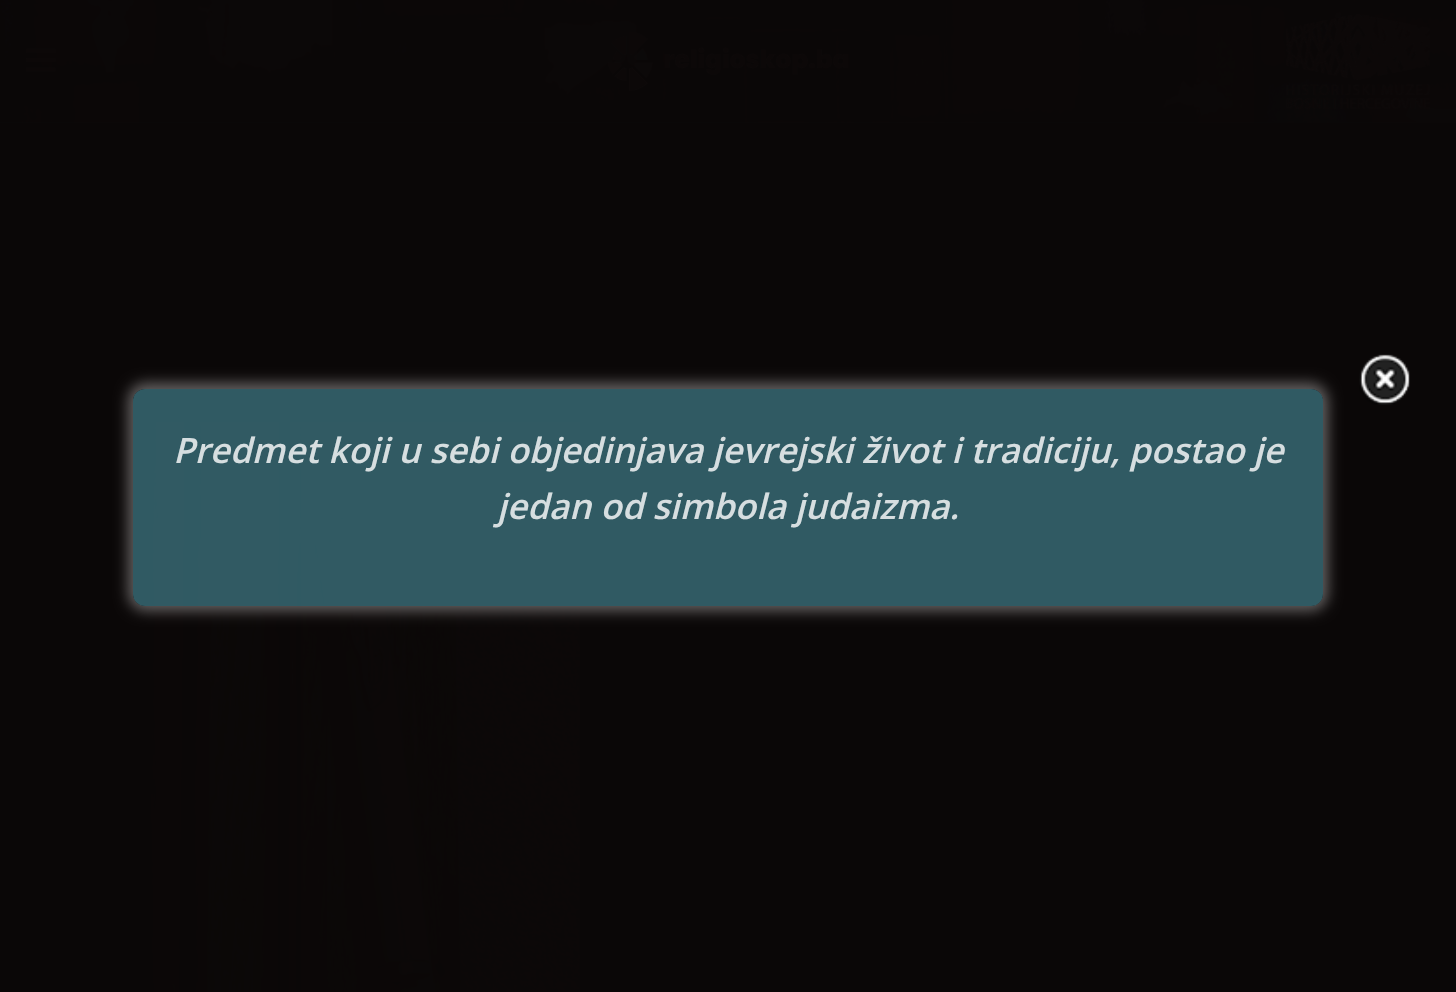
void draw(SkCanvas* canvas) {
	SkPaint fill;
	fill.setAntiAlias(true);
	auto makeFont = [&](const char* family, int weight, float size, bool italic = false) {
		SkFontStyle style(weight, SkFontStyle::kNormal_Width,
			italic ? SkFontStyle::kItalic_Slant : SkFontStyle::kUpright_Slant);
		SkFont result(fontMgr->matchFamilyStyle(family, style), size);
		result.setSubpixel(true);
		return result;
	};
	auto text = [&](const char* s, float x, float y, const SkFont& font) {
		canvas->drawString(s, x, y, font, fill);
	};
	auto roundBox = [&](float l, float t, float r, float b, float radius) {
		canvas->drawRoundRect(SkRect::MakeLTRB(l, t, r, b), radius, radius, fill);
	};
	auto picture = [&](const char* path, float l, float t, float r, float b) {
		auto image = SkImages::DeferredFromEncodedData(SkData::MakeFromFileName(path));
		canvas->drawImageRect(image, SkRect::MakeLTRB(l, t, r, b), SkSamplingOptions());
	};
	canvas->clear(0xFF0A0707);
	picture("image0.png", 0, 0, 1456, 123);
	picture("image1.png", 26, 48, 56, 72);
	picture("image2.png", 608, 32, 849, 91);
	picture("image3.png", 1286, 14, 1431, 109);
	picture("image4.png", 146, 422, 584, 992);
	picture("image5.png", 1359, 354, 1410, 405);
	canvas->save();
	canvas->clipPath(SkPathBuilder(SkPathFillType::kEvenOdd).moveTo(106, 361).lineTo(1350, 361).lineTo(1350, 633).lineTo(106, 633).close().moveTo(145, 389).lineTo(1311, 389).cubicTo(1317.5f, 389, 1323, 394.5f, 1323, 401).lineTo(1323, 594).cubicTo(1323, 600.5f, 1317.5f, 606, 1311, 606).lineTo(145, 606).cubicTo(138.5f, 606, 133, 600.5f, 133, 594).lineTo(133, 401).cubicTo(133, 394.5f, 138.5f, 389, 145, 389).close().detach(), true);
	fill.setColor(0xFF646161);
	fill.setMaskFilter(SkMaskFilter::MakeBlur(kNormal_SkBlurStyle, 7));
	canvas->drawRoundRect(SkRect::MakeLTRB(128, 383, 1328, 611), 18, 18, fill);
	fill.setMaskFilter(nullptr);
	canvas->restore();
	fill.setColor(0xCC3A6E79);
	roundBox(133, 389, 1323, 606, 12);
	auto font1 = makeFont("Open Sans", 600, 35, true);
	fill.setColor(0xFFD6DEE0);
	text("Predmet koji u sebi objedinjava jevrejski život i tradiciju, postao je", 173, 463, font1);
	text("jedan od simbola judaizma.", 497, 519, font1);
}
